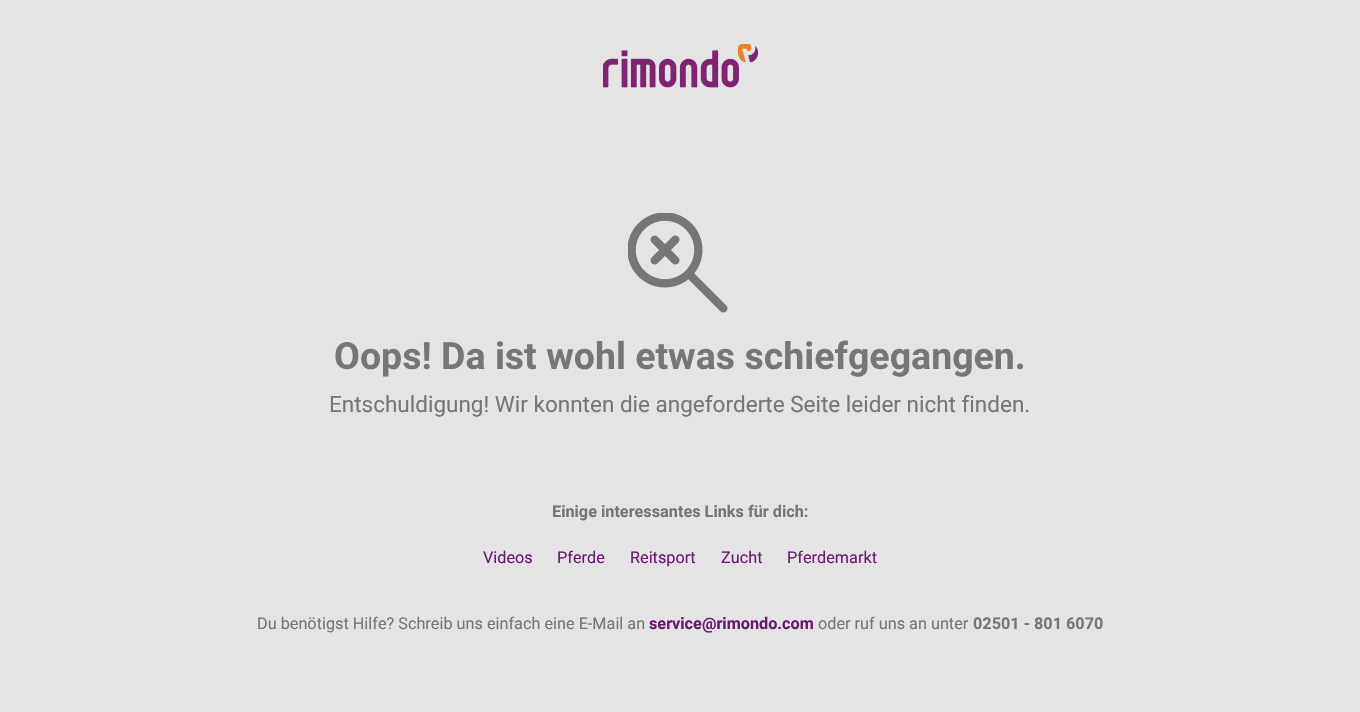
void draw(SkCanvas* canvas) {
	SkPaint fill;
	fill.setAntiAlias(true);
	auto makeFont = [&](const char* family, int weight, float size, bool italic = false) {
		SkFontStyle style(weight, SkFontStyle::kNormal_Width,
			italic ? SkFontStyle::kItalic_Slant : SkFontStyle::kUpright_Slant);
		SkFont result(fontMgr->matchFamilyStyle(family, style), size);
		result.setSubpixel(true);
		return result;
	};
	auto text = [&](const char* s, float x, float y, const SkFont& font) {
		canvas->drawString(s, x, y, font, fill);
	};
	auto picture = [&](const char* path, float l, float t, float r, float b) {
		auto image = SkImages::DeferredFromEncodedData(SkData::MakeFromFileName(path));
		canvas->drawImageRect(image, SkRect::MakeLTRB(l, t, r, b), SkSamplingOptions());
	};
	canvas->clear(0xFFE4E4E4);
	picture("image0.png", 603, 44, 759, 88);
	picture("image1.png", 628, 213, 728, 313);
	auto font1 = makeFont("Roboto", 700, 37.5f);
	fill.setColor(0xFF767676);
	text("Oops! Da ist wohl etwas schiefgegangen.", 334, 369, font1);
	auto font2 = makeFont("Roboto", 400, 22.5f);
	text("Entschuldigung! Wir konnten die angeforderte Seite leider nicht finden.", 329, 412, font2);
	auto font3 = makeFont("Roboto", 700, 16.25f);
	text("Einige interessantes Links für dich:", 552, 517, font3);
	auto font4 = makeFont("Roboto", 400, 16.25f);
	fill.setColor(0xFF661B6D);
	text("Videos", 483, 563, font4);
	text("Pferde", 557, 563, font4);
	text("Reitsport", 630, 563, font4);
	text("Zucht", 721, 563, font4);
	text("Pferdemarkt", 787, 563, font4);
	fill.setColor(0xFF767676);
	text("Du benötigst Hilfe? Schreib uns einfach eine E-Mail an", 257, 629, font4);
	fill.setColor(0xFF661B6D);
	text("service@rimondo.com", 649, 629, font3);
	fill.setColor(0xFF767676);
	text("oder ruf uns an unter", 818, 629, font4);
	text("02501 - 801 6070", 973, 629, font3);
}
